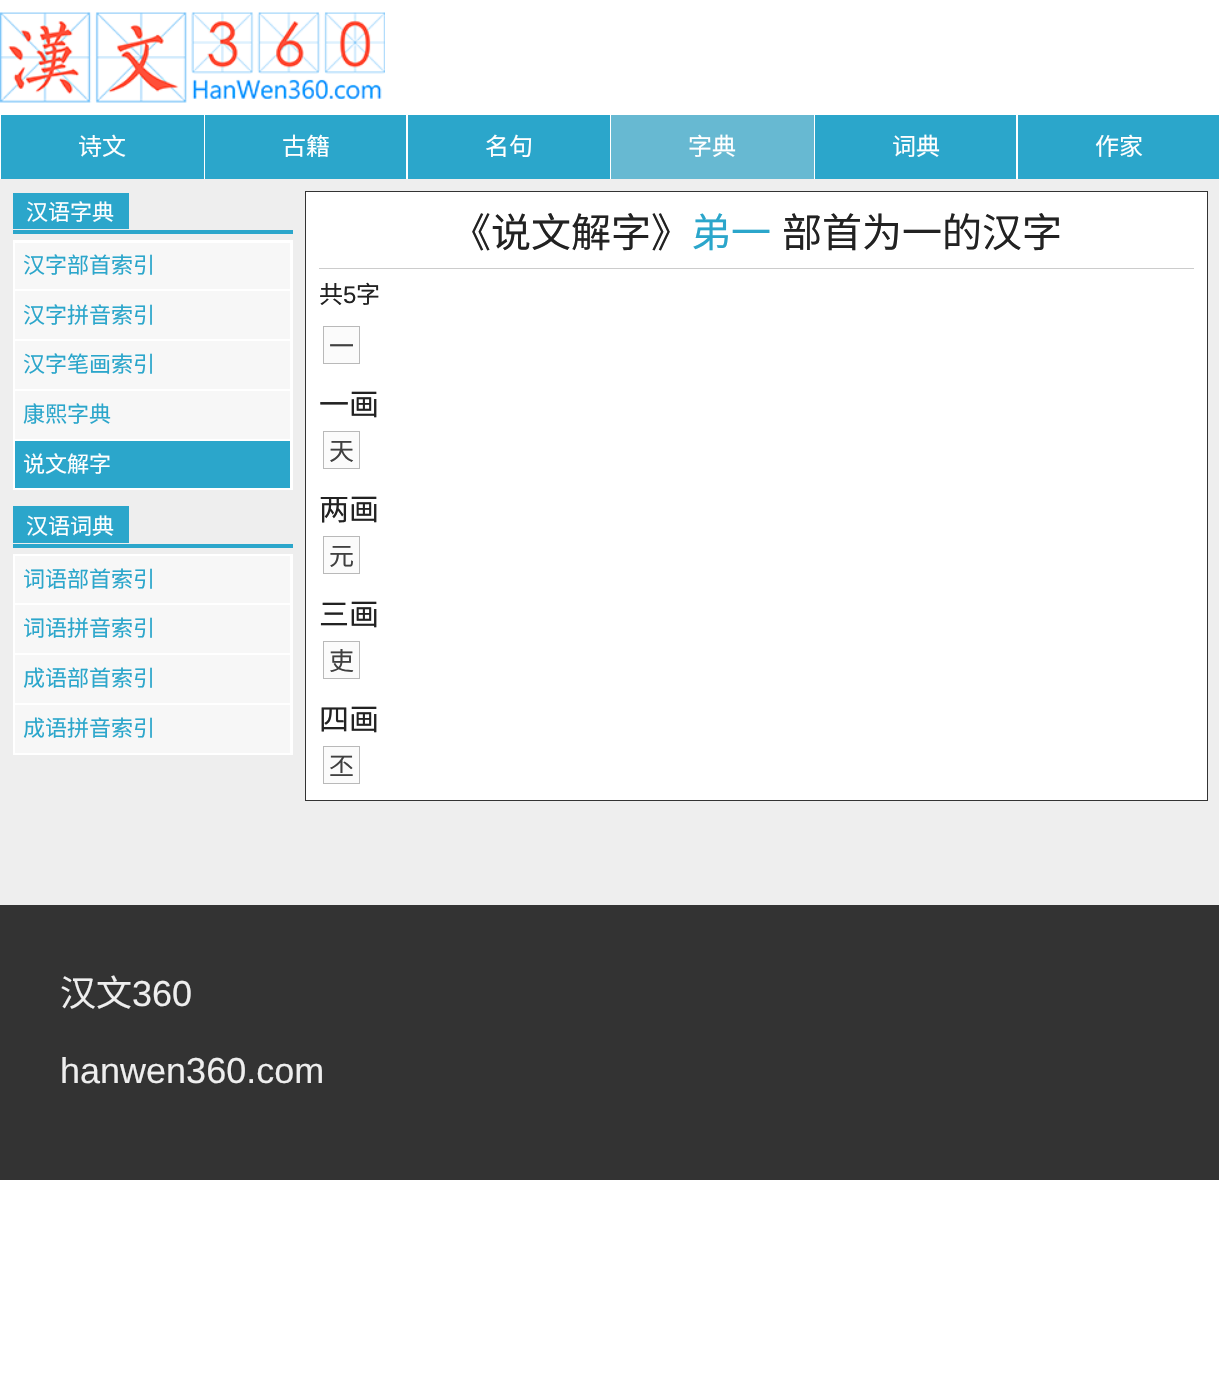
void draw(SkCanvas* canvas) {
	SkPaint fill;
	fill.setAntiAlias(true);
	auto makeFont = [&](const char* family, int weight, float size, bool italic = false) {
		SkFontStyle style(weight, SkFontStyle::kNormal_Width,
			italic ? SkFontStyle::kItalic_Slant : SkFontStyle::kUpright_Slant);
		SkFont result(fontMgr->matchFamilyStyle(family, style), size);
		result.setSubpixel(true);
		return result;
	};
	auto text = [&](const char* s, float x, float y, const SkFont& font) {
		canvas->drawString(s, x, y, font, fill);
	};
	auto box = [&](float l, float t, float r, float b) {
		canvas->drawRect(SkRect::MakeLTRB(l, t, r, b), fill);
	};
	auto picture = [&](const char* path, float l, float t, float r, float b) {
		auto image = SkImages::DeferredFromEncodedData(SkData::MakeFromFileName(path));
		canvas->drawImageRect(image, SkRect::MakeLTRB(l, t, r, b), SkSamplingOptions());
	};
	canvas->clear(0xFFFFFFFF);
	picture("image0.png", 0, 12, 385, 103);
	fill.setColor(0xFF2BA6CB);
	box(1, 115, 204, 179);
	box(205, 115, 406, 179);
	box(408, 115, 610, 179);
	fill.setColor(0xFF67B9D2);
	box(611, 115, 814, 179);
	fill.setColor(0xFF2BA6CB);
	box(815, 115, 1016, 179);
	box(1018, 115, 1219, 179);
	fill.setColor(0xFFEEEEEE);
	box(0, 179, 1219, 905);
	fill.setColor(0xFF2BA6CB);
	box(13, 230, 293, 234);
	box(13, 193, 129, 229);
	fill.setColor(0xFFFFFFFF);
	box(13, 240, 293, 490);
	fill.setColor(0xFFF7F7F7);
	box(15, 243, 290, 289);
	box(15, 291, 290, 339);
	box(15, 341, 290, 389);
	box(15, 391, 290, 439);
	fill.setColor(0xFF2BA6CB);
	box(15, 441, 290, 488);
	box(13, 544, 293, 548);
	box(13, 506, 129, 543);
	fill.setColor(0xFFFFFFFF);
	box(13, 554, 293, 755);
	fill.setColor(0xFFF7F7F7);
	box(15, 556, 290, 603);
	box(15, 605, 290, 653);
	box(15, 655, 290, 703);
	box(15, 705, 290, 753);
	fill.setColor(0xFFFFFFFF);
	canvas->drawRect(SkRect::MakeLTRB(305.5f, 191.5f, 1207.5f, 800.5f), fill);
	fill.setStyle(SkPaint::kStroke_Style);
	fill.setStrokeWidth(1);
	fill.setColor(0xFF333333);
	canvas->drawRect(SkRect::MakeLTRB(305.5f, 191.5f, 1207.5f, 800.5f), fill);
	fill.setStyle(SkPaint::kFill_Style);
	fill.setColor(0xFFCCCCCC);
	box(319, 268, 1194, 269);
	fill.setColor(0xFFFBFBFB);
	canvas->drawRect(SkRect::MakeLTRB(323.5f, 326.5f, 359.5f, 363.5f), fill);
	fill.setStyle(SkPaint::kStroke_Style);
	fill.setColor(0xFFB9B9B9);
	canvas->drawRect(SkRect::MakeLTRB(323.5f, 326.5f, 359.5f, 363.5f), fill);
	fill.setStyle(SkPaint::kFill_Style);
	fill.setColor(0xFFFBFBFB);
	canvas->drawRect(SkRect::MakeLTRB(323.5f, 431.5f, 359.5f, 468.5f), fill);
	fill.setStyle(SkPaint::kStroke_Style);
	fill.setColor(0xFFB9B9B9);
	canvas->drawRect(SkRect::MakeLTRB(323.5f, 431.5f, 359.5f, 468.5f), fill);
	fill.setStyle(SkPaint::kFill_Style);
	fill.setColor(0xFFFBFBFB);
	canvas->drawRect(SkRect::MakeLTRB(323.5f, 536.5f, 359.5f, 573.5f), fill);
	fill.setStyle(SkPaint::kStroke_Style);
	fill.setColor(0xFFB9B9B9);
	canvas->drawRect(SkRect::MakeLTRB(323.5f, 536.5f, 359.5f, 573.5f), fill);
	fill.setStyle(SkPaint::kFill_Style);
	fill.setColor(0xFFFBFBFB);
	canvas->drawRect(SkRect::MakeLTRB(323.5f, 641.5f, 359.5f, 678.5f), fill);
	fill.setStyle(SkPaint::kStroke_Style);
	fill.setColor(0xFFB9B9B9);
	canvas->drawRect(SkRect::MakeLTRB(323.5f, 641.5f, 359.5f, 678.5f), fill);
	fill.setStyle(SkPaint::kFill_Style);
	fill.setColor(0xFFFBFBFB);
	canvas->drawRect(SkRect::MakeLTRB(323.5f, 746.5f, 359.5f, 783.5f), fill);
	fill.setStyle(SkPaint::kStroke_Style);
	fill.setColor(0xFFB9B9B9);
	canvas->drawRect(SkRect::MakeLTRB(323.5f, 746.5f, 359.5f, 783.5f), fill);
	fill.setStyle(SkPaint::kFill_Style);
	fill.setColor(0xFF333333);
	box(0, 905, 1219, 1180);
	auto font1 = makeFont("Noto Sans CJK SC", 400, 24);
	fill.setColor(0xFFFFFFFF);
	text("诗文", 78, 155, font1);
	text("古籍", 282, 155, font1);
	text("名句", 485, 155, font1);
	text("字典", 688, 155, font1);
	text("词典", 892, 155, font1);
	text("作家", 1095, 155, font1);
	auto font2 = makeFont("Noto Sans CJK SC", 400, 22);
	text("汉语字典", 26, 220, font2);
	fill.setColor(0xFF2BA6CB);
	text("汉字部首索引", 23, 273, font2);
	text("汉字拼音索引", 23, 323, font2);
	text("汉字笔画索引", 23, 372, font2);
	text("康熙字典", 23, 422, font2);
	fill.setColor(0xFFFFFFFF);
	text("说文解字", 23, 472, font2);
	text("汉语词典", 26, 534, font2);
	fill.setColor(0xFF2BA6CB);
	text("词语部首索引", 23, 587, font2);
	text("词语拼音索引", 23, 636, font2);
	text("成语部首索引", 23, 686, font2);
	text("成语拼音索引", 23, 736, font2);
	auto font3 = makeFont("Noto Sans CJK SC", 400, 40);
	fill.setColor(0xFF222222);
	text("《说文解字》", 451, 247, font3);
	fill.setColor(0xFF2BA6CB);
	text("弟一", 691, 247, font3);
	fill.setColor(0xFF222222);
	text("部首为一的汉字", 782, 247, font3);
	text("共", 319, 303, font1);
	auto font4 = makeFont("Liberation Sans", 400, 24);
	text("5", 343, 303, font4);
	text("字", 356, 303, font1);
	auto font5 = makeFont("Noto Sans CJK SC", 400, 25);
	fill.setColor(0xFF404040);
	text("一", 329, 355, font5);
	auto font6 = makeFont("Noto Sans CJK SC", 400, 30);
	fill.setColor(0xFF222222);
	text("一画", 319, 415, font6);
	fill.setColor(0xFF404040);
	text("天", 329, 460, font5);
	fill.setColor(0xFF222222);
	text("两画", 319, 520, font6);
	fill.setColor(0xFF404040);
	text("元", 329, 565, font5);
	fill.setColor(0xFF222222);
	text("三画", 319, 625, font6);
	fill.setColor(0xFF404040);
	text("吏", 329, 670, font5);
	fill.setColor(0xFF222222);
	text("四画", 319, 730, font6);
	fill.setColor(0xFF404040);
	text("丕", 329, 775, font5);
	auto font7 = makeFont("Noto Sans CJK SC", 400, 36);
	fill.setColor(0xFFEEEEEE);
	text("汉文", 60, 1006, font7);
	auto font8 = makeFont("Liberation Sans", 400, 36);
	text("360", 132, 1006, font8);
	text("hanwen360.com", 60, 1083, font8);
}
